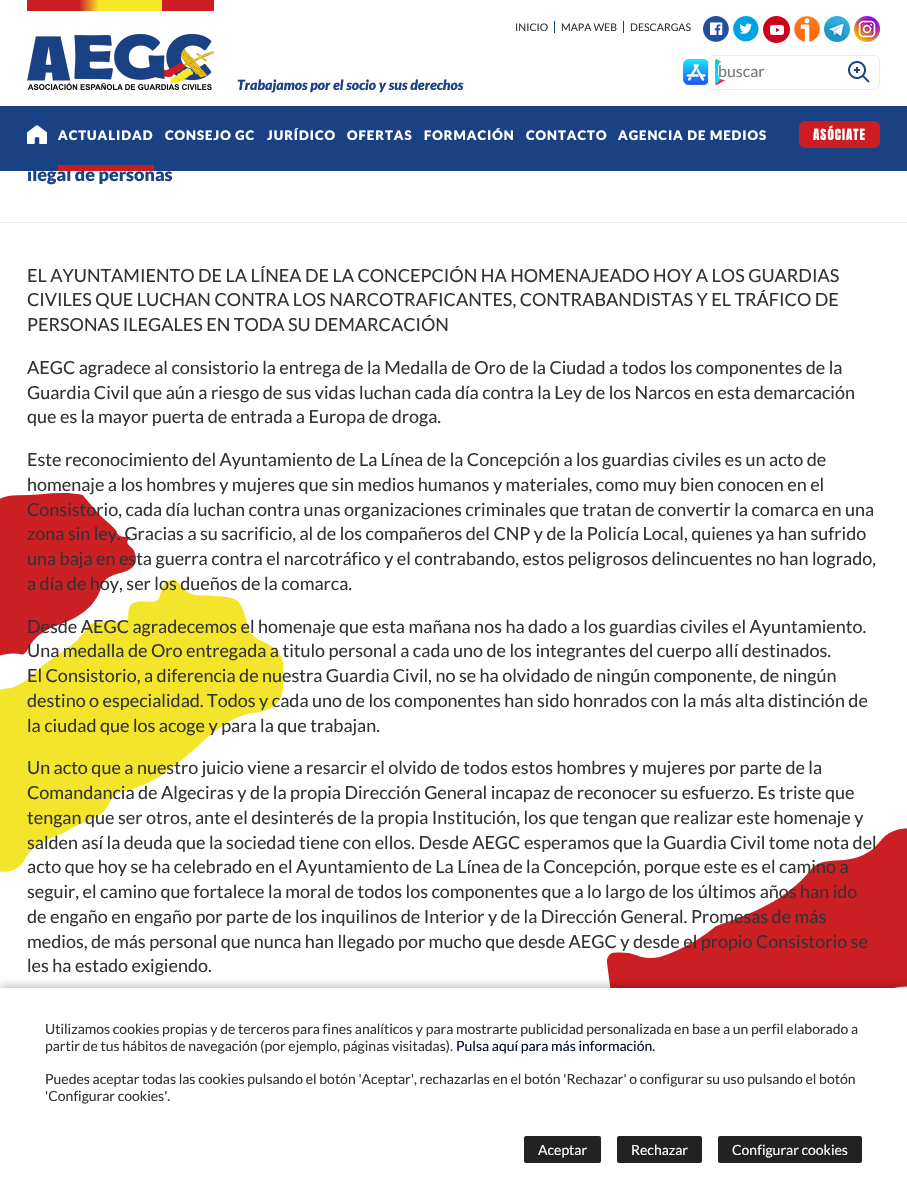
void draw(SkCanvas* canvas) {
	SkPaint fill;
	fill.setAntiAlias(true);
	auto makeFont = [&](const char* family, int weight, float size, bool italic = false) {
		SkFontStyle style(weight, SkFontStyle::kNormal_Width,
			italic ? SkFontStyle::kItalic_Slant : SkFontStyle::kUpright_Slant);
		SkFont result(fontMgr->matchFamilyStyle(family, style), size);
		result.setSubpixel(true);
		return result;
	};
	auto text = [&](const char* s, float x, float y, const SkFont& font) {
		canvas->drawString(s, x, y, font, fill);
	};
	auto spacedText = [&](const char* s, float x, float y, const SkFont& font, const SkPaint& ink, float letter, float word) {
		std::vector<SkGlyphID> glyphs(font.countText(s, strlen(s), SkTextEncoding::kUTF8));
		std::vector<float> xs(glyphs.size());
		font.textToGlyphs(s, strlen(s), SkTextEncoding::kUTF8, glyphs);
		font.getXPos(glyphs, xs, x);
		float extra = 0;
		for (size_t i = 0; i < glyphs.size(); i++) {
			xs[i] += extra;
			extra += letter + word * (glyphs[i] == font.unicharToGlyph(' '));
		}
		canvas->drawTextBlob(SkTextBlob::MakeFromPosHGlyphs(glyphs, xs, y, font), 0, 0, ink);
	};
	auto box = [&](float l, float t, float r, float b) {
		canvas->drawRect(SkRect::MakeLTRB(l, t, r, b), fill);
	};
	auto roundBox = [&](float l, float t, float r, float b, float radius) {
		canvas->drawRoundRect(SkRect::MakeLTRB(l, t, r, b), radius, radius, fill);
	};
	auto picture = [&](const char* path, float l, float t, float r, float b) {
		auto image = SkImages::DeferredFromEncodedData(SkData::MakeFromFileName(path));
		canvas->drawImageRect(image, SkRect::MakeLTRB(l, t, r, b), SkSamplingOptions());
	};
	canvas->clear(0xFFFFFFFF);
	picture("image0.png", 27, 0, 214, 90);
	fill.setColor(0xFF1A4183);
	box(554, 21, 555, 33);
	box(623, 21, 624, 33);
	picture("image1.png", 703, 16, 729, 42);
	picture("image2.png", 733, 16, 759, 42);
	picture("image3.png", 763, 16, 790, 43);
	picture("image4.png", 794, 16, 820, 42);
	picture("image5.png", 824, 16, 850, 42);
	picture("image6.png", 854, 16, 880, 42);
	picture("image7.png", 683, 59, 708, 85);
	picture("image8.png", 715, 59, 726, 85);
	fill.setStyle(SkPaint::kStroke_Style);
	fill.setStrokeWidth(1);
	fill.setColor(0xFFE6EBF1);
	canvas->drawRoundRect(SkRect::MakeLTRB(708.5f, 55.5f, 879.5f, 89.5f), 5.5f, 5.5f, fill);
	fill.setStyle(SkPaint::kFill_Style);
	fill.setColor(0xFFFFFFFF);
	roundBox(718, 61, 839, 80, 6);
	picture("image9.png", 848, 61, 870, 83);
	fill.setColor(0xFF1A4183);
	box(0, 106, 907, 171);
	picture("image10.png", 27, 125, 47, 144);
	fill.setColor(0xFFCB1D22);
	canvas->drawRoundRect(SkRect::MakeLTRB(799.5f, 121.5f, 879.5f, 147.5f), 5.5f, 5.5f, fill);
	fill.setStyle(SkPaint::kStroke_Style);
	canvas->drawRoundRect(SkRect::MakeLTRB(799.5f, 121.5f, 879.5f, 147.5f), 5.5f, 5.5f, fill);
	picture("image11.png", 0, 493, 907, 988);
	fill.setStyle(SkPaint::kFill_Style);
	fill.setColor(0xFFE6EBF1);
	box(0, 222, 907, 223);
	fill.setColor(0x40000000);
	fill.setMaskFilter(SkMaskFilter::MakeBlur(kNormal_SkBlurStyle, 4));
	canvas->drawRect(SkRect::MakeLTRB(0, 986, 907, 1193), fill);
	fill.setMaskFilter(nullptr);
	fill.setColor(0xFFFFFFFF);
	box(0, 988, 907, 1195);
	fill.setColor(0xFF222222);
	roundBox(524, 1136, 601, 1163, 2);
	roundBox(617, 1136, 702, 1163, 2);
	roundBox(718, 1136, 862, 1163, 2);
	auto font1 = makeFont("Lato", 400, 10.5f);
	fill.setColor(0xFF333333);
	text("INICIO", 515, 31, font1);
	text("MAPA WEB", 561, 31, font1);
	text("DESCARGAS", 630, 31, font1);
	auto font2 = makeFont("Lato", 400, 16);
	fill.setColor(0xFF777777);
	text("buscar", 718, 77, font2);
	auto font3 = makeFont("Lato", 900, 14, true);
	fill.setColor(0xFF1A4183);
	text("Trabajamos por el socio y sus derechos", 237, 90, font3);
	auto font4 = makeFont("Lato", 900, 13.1f);
	fill.setColor(0xFFFFFFFF);
	spacedText("ACTUALIDAD", 58, 140, font4, fill, 1, 0);
	spacedText("CONSEJO GC", 165, 140, font4, fill, 1, 0);
	spacedText("JURÍDICO", 267, 140, font4, fill, 1, 0);
	spacedText("OFERTAS", 347, 140, font4, fill, 1, 0);
	spacedText("FORMACIÓN", 424, 140, font4, fill, 1, 0);
	spacedText("CONTACTO", 526, 140, font4, fill, 1, 0);
	spacedText("AGENCIA DE MEDIOS", 618, 140, font4, fill, 1, 0);
	auto font5 = makeFont("Anton", 400, 13.1f);
	spacedText("ASÓCIATE", 813, 140, font5, fill, 1, 0);
	auto font6 = makeFont("Lato", 900, 18);
	fill.setColor(0xFF1A4183);
	text("ilegal de personas", 27, 181, font6);
	fill.setColor(0xFFCB1D22);
	box(58, 165, 154, 171);
	auto font7 = makeFont("Lato", 400, 18);
	fill.setColor(0xFF333333);
	text("EL AYUNTAMIENTO DE LA LÍNEA DE LA CONCEPCIÓN HA HOMENAJEADO HOY A LOS GUARDIAS", 27, 282, font7);
	text("CIVILES QUE LUCHAN CONTRA LOS NARCOTRAFICANTES, CONTRABANDISTAS Y EL TRÁFICO DE", 27, 306, font7);
	text("PERSONAS ILEGALES EN TODA SU DEMARCACIÓN", 27, 331, font7);
	text("AEGC agradece al consistorio la entrega de la Medalla de Oro de la Ciudad a todos los componentes de la", 27, 374, font7);
	text("Guardia Civil que aún a riesgo de sus vidas luchan cada día contra la Ley de los Narcos en esta demarcación", 27, 399, font7);
	text("que es la mayor puerta de entrada a Europa de droga.", 27, 423, font7);
	text("Este reconocimiento del Ayuntamiento de La Línea de la Concepción a los guardias civiles es un acto de", 27, 466, font7);
	text("homenaje a los hombres y mujeres que sin medios humanos y materiales, como muy bien conocen en el", 27, 491, font7);
	text("Consistorio, cada día luchan contra unas organizaciones criminales que tratan de convertir la comarca en una", 27, 516, font7);
	text("zona sin ley. Gracias a su sacrificio, al de los compañeros del CNP y de la Policía Local, quienes ya han sufrido", 27, 540, font7);
	text("una baja en esta guerra contra el narcotráfico y el contrabando, estos peligrosos delincuentes no han logrado,", 27, 565, font7);
	text("a día de hoy, ser los dueños de la comarca.", 27, 590, font7);
	text("Desde AEGC agradecemos el homenaje que esta mañana nos ha dado a los guardias civiles el Ayuntamiento.", 27, 633, font7);
	text("Una medalla de Oro entregada a titulo personal a cada uno de los integrantes del cuerpo allí destinados.", 27, 657, font7);
	text("El Consistorio, a diferencia de nuestra Guardia Civil, no se ha olvidado de ningún componente, de ningún", 27, 682, font7);
	text("destino o especialidad. Todos y cada uno de los componentes han sido honrados con la más alta distinción de", 27, 707, font7);
	text("la ciudad que los acoge y para la que trabajan.", 27, 732, font7);
	text("Un acto que a nuestro juicio viene a resarcir el olvido de todos estos hombres y mujeres por parte de la", 27, 774, font7);
	text("Comandancia de Algeciras y de la propia Dirección General incapaz de reconocer su esfuerzo. Es triste que", 27, 799, font7);
	text("tengan que ser otros, ante el desinterés de la propia Institución, los que tengan que realizar este homenaje y", 27, 824, font7);
	text("salden así la deuda que la sociedad tiene con ellos. Desde AEGC esperamos que la Guardia Civil tome nota del", 27, 849, font7);
	text("acto que hoy se ha celebrado en el Ayuntamiento de La Línea de la Concepción, porque este es el camino a", 27, 873, font7);
	text("seguir, el camino que fortalece la moral de todos los componentes que a lo largo de los últimos años han ido", 27, 898, font7);
	text("de engaño en engaño por parte de los inquilinos de Interior y de la Dirección General. Promesas de más", 27, 923, font7);
	text("medios, de más personal que nunca han llegado por mucho que desde AEGC y desde el propio Consistorio se", 27, 948, font7);
	text("les ha estado exigiendo.", 27, 972, font7);
	auto font8 = makeFont("Lato", 400, 14);
	text("Utilizamos cookies propias y de terceros para fines analíticos y para mostrarte publicidad personalizada en base a un perfil elaborado a", 45, 1034, font8);
	text("partir de tus hábitos de navegación (por ejemplo, páginas visitadas).", 45, 1051, font8);
	fill.setColor(0xFF050D31);
	text("Pulsa aquí para más información.", 456, 1051, font8);
	fill.setColor(0xFF333333);
	text("Puedes aceptar todas las cookies pulsando el botón 'Aceptar', rechazarlas en el botón 'Rechazar' o configurar su uso pulsando el botón", 45, 1084, font8);
	text("'Configurar cookies'.", 45, 1101, font8);
	fill.setColor(0xFFFFFFFF);
	text("Aceptar", 538, 1155, font8);
	text("Rechazar", 631, 1155, font8);
	text("Configurar cookies", 732, 1155, font8);
}
